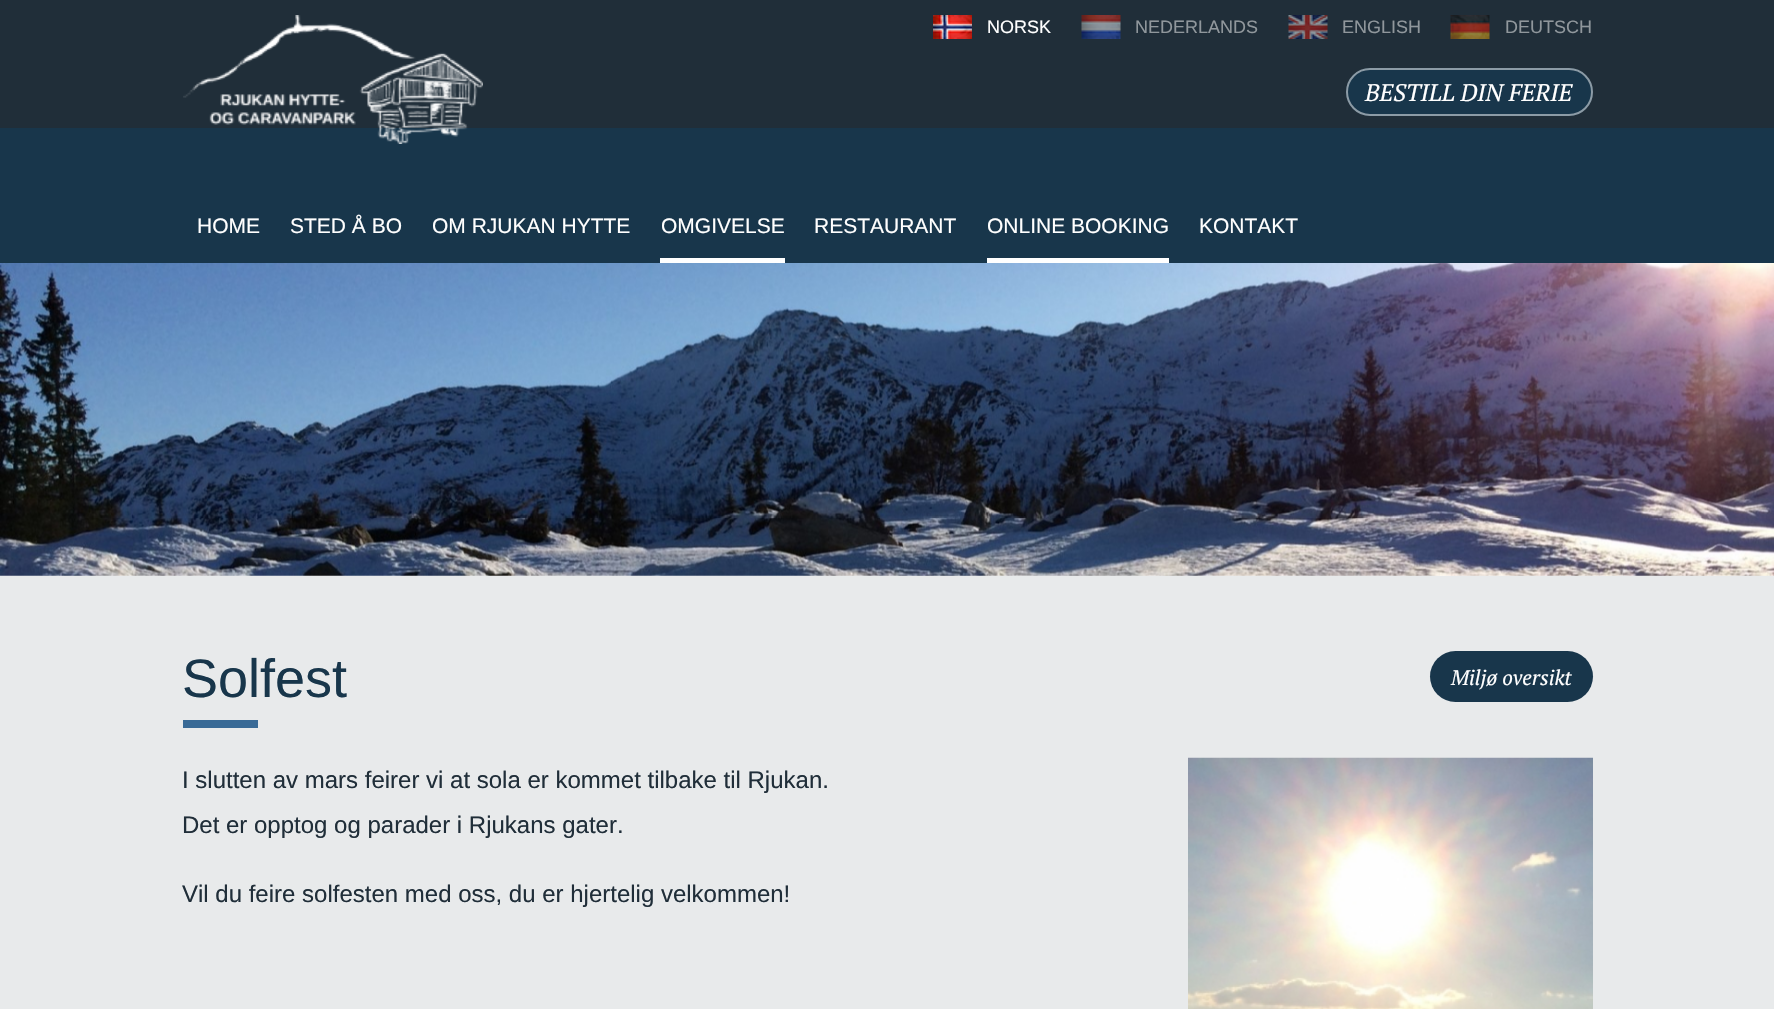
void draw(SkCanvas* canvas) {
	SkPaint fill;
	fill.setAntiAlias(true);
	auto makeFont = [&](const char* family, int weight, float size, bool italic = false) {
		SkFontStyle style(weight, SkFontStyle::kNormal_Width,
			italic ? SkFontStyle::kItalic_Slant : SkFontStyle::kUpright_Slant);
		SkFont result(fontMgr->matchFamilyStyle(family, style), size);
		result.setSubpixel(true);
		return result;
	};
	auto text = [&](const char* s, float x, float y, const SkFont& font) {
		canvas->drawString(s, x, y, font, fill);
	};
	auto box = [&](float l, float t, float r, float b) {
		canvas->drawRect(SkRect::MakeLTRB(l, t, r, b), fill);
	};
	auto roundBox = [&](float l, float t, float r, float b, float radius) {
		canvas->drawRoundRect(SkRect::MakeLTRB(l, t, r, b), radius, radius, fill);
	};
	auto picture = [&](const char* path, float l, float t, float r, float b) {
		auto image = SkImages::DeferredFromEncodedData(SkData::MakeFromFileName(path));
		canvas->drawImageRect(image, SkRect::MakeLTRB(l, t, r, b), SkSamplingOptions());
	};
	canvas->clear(0xFFFFFFFF);
	fill.setColor(0xFF202E39);
	box(0, 0, 1774, 128);
	fill.setColor(0xFF18364B);
	box(0, 128, 1774, 263);
	picture("image0.png", 183, 15, 483, 144);
	picture("image1.png", 933, 15, 972, 39);
	picture("image2.png", 1081, 15, 1121, 39);
	picture("image3.png", 1288, 15, 1328, 39);
	picture("image4.png", 1450, 15, 1490, 39);
	roundBox(1346, 68, 1593, 116, 24);
	fill.setStyle(SkPaint::kStroke_Style);
	fill.setStrokeWidth(2);
	fill.setColor(0x80FFFFFF);
	canvas->drawRoundRect(SkRect::MakeLTRB(1347, 69, 1592, 115), 23, 23, fill);
	fill.setStyle(SkPaint::kFill_Style);
	fill.setColor(0xFFFFFFFF);
	box(660, 258, 785, 263);
	box(987, 258, 1169, 263);
	fill.setColor(0x40000000);
	fill.setMaskFilter(SkMaskFilter::MakeBlur(kNormal_SkBlurStyle, 7.5f));
	canvas->drawRect(SkRect::MakeLTRB(0, 581, 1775, 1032), fill);
	fill.setMaskFilter(nullptr);
	picture("image5.png", 0, 263, 1774, 576);
	fill.setColor(0xFFE8EAEB);
	box(0, 576, 1774, 1009);
	fill.setColor(0xFF396A96);
	box(183, 720, 258, 728);
	fill.setColor(0xFF18364B);
	roundBox(1430, 651, 1593, 702, 25.5f);
	picture("image6.png", 1188, 757, 1593, 1009);
	auto font1 = makeFont("Arimo", 400, 18);
	fill.setColor(0xFFFFFFFF);
	text("NORSK", 987, 33, font1);
	fill.setColor(0xFF90979C);
	text("NEDERLANDS", 1135, 33, font1);
	text("ENGLISH", 1342, 33, font1);
	text("DEUTSCH", 1505, 33, font1);
	auto font2 = makeFont("PT Serif", 400, 24, true);
	fill.setColor(0xFFFFFFFF);
	text("BESTILL DIN FERIE", 1365, 101, font2);
	auto font3 = makeFont("Arimo", 400, 21);
	text("HOME", 197, 233, font3);
	text("STED Å BO", 290, 233, font3);
	text("OM RJUKAN HYTTE", 432, 233, font3);
	text("OMGIVELSE", 661, 233, font3);
	text("RESTAURANT", 814, 233, font3);
	text("ONLINE BOOKING", 987, 233, font3);
	text("KONTAKT", 1199, 233, font3);
	auto font4 = makeFont("Arimo", 400, 54);
	fill.setColor(0xFF18364B);
	text("Solfest", 182, 697, font4);
	auto font5 = makeFont("PT Serif", 400, 21, true);
	fill.setColor(0xFFFFFFFF);
	text("Miljø oversikt", 1451, 685, font5);
	auto font6 = makeFont("Arimo", 400, 24);
	fill.setColor(0xFF202E39);
	text("I slutten av mars feirer vi at sola er kommet tilbake til Rjukan.", 182, 788, font6);
	text("Det er opptog og parader i Rjukans gater.", 182, 833, font6);
	text("Vil du feire solfesten med oss, du er hjertelig velkommen!", 182, 902, font6);
}
